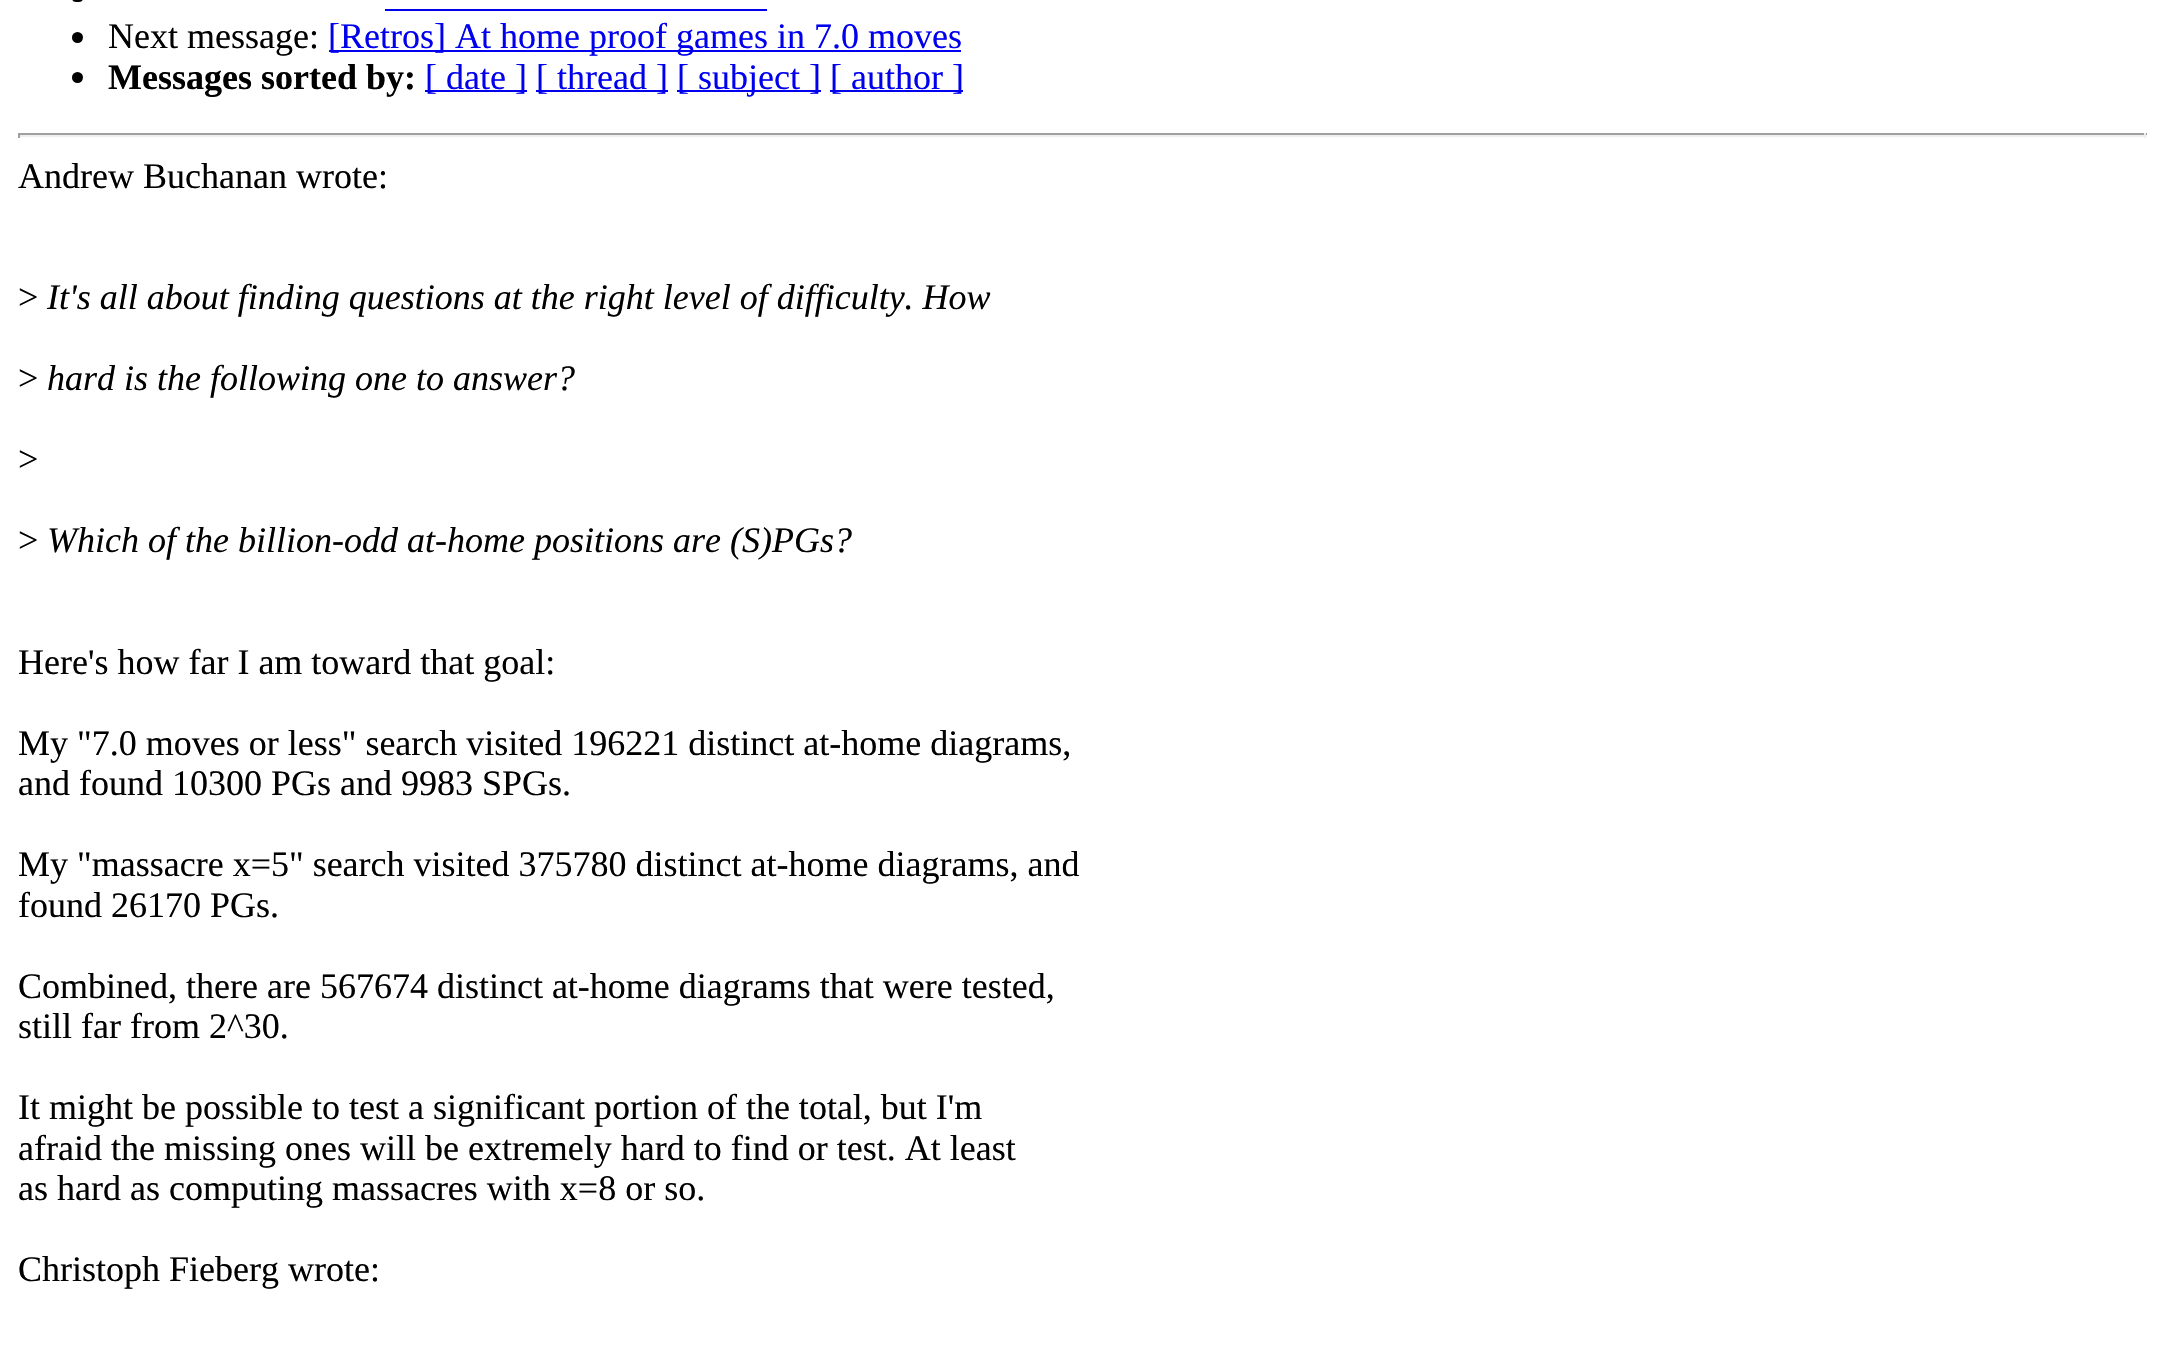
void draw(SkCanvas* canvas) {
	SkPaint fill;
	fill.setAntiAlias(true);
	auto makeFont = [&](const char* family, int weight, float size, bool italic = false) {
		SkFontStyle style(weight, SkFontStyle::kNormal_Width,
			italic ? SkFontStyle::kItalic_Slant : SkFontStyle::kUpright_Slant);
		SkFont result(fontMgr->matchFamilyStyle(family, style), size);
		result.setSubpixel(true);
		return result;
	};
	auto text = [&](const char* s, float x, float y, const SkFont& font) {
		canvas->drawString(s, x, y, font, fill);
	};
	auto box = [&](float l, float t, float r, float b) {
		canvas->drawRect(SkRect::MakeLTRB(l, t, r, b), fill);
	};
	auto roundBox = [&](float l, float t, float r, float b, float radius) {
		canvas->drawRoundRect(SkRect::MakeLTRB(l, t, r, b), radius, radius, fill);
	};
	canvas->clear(0xFFFFFFFF);
	fill.setColor(0xFF000000);
	roundBox(72, -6, 83, 2, 5.5f);
	fill.setColor(0xFF0000EE);
	box(385, 9, 767, 11);
	fill.setColor(0xFF000000);
	canvas->drawCircle(77.5f, 37.5f, 5.5f, fill);
	fill.setColor(0xFF0000EE);
	box(329, 50, 961, 52);
	fill.setColor(0xFF000000);
	canvas->drawCircle(77.5f, 77.5f, 5.5f, fill);
	fill.setColor(0xFF0000EE);
	box(425, 90, 527, 92);
	box(536, 90, 668, 92);
	box(677, 90, 821, 92);
	box(830, 90, 963, 92);
	fill.setColor(0xFF9F9F9F);
	box(18, 133, 2147, 135);
	fill.setColor(0xFFEEEEEE);
	box(2144, 133, 2146, 138);
	box(18, 135, 2147, 137);
	fill.setColor(0xFF9F9F9F);
	box(18, 133, 20, 138);
	auto font1 = makeFont("Liberation Serif", 400, 36);
	fill.setColor(0xFF000000);
	text("Next message:", 108, 48, font1);
	fill.setColor(0xFF0000EE);
	text("[Retros] At home proof games in 7.0 moves", 328, 48, font1);
	auto font2 = makeFont("Liberation Serif", 700, 36);
	fill.setColor(0xFF000000);
	text("Messages sorted by:", 108, 89, font2);
	fill.setColor(0xFF0000EE);
	text("[ date ]", 425, 89, font1);
	text("[ thread ]", 536, 89, font1);
	text("[ subject ]", 677, 89, font1);
	text("[ author ]", 830, 89, font1);
	fill.setColor(0xFF000000);
	text("Andrew Buchanan wrote:", 18, 188, font1);
	text(">", 18, 309, font1);
	auto font3 = makeFont("Liberation Serif", 400, 36, true);
	text("It's all about finding questions at the right level of difficulty. How", 47, 309, font3);
	text(">", 18, 390, font1);
	text("hard is the following one to answer?", 47, 390, font3);
	text(">", 18, 471, font1);
	text(">", 18, 552, font1);
	text("Which of the billion-odd at-home positions are (S)PGs?", 47, 552, font3);
	text("Here's how far I am toward that goal:", 18, 674, font1);
	text("My \"7.0 moves or less\" search visited 196221 distinct at-home diagrams,", 18, 755, font1);
	text("and found 10300 PGs and 9983 SPGs.", 18, 795, font1);
	text("My \"massacre x=5\" search visited 375780 distinct at-home diagrams, and", 18, 876, font1);
	text("found 26170 PGs.", 18, 917, font1);
	text("Combined, there are 567674 distinct at-home diagrams that were tested,", 18, 998, font1);
	text("still far from 2^30.", 18, 1038, font1);
	text("It might be possible to test a significant portion of the total, but I'm", 18, 1119, font1);
	text("afraid the missing ones will be extremely hard to find or test. At least", 18, 1160, font1);
	text("as hard as computing massacres with x=8 or so.", 18, 1200, font1);
	text("Christoph Fieberg wrote:", 18, 1281, font1);
}
